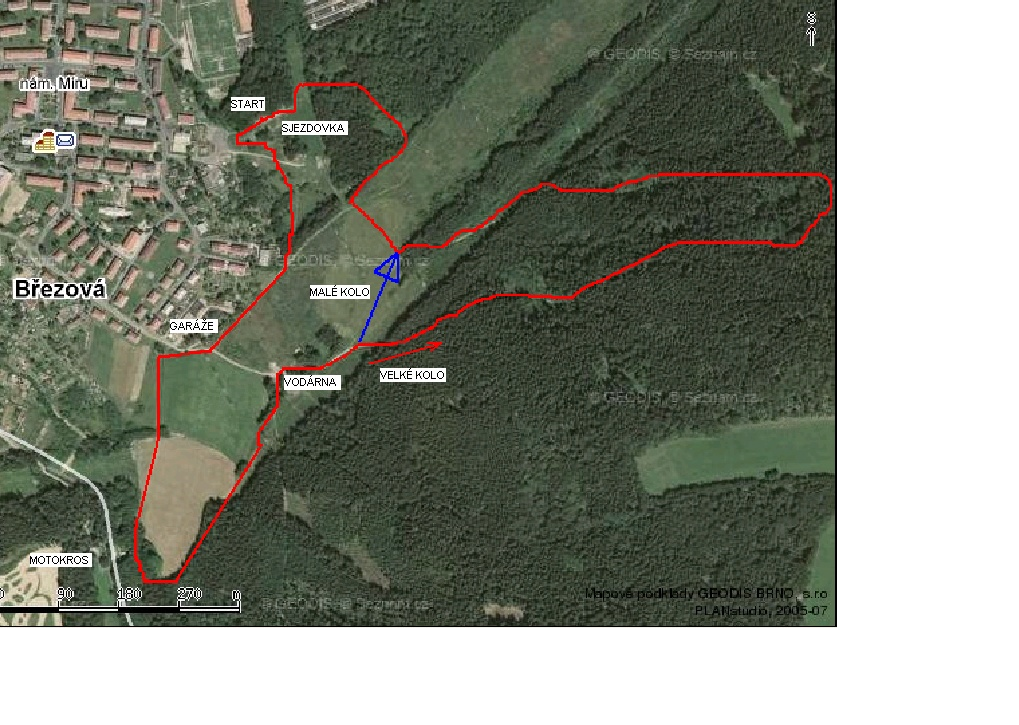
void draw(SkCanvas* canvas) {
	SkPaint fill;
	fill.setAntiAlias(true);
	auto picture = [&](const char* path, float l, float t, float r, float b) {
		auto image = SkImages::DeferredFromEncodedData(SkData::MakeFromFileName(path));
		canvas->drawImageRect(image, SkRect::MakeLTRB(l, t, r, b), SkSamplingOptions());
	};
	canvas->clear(0xFFFFFFFF);
	picture("image0.png", 0, 0, 837, 628);
}
